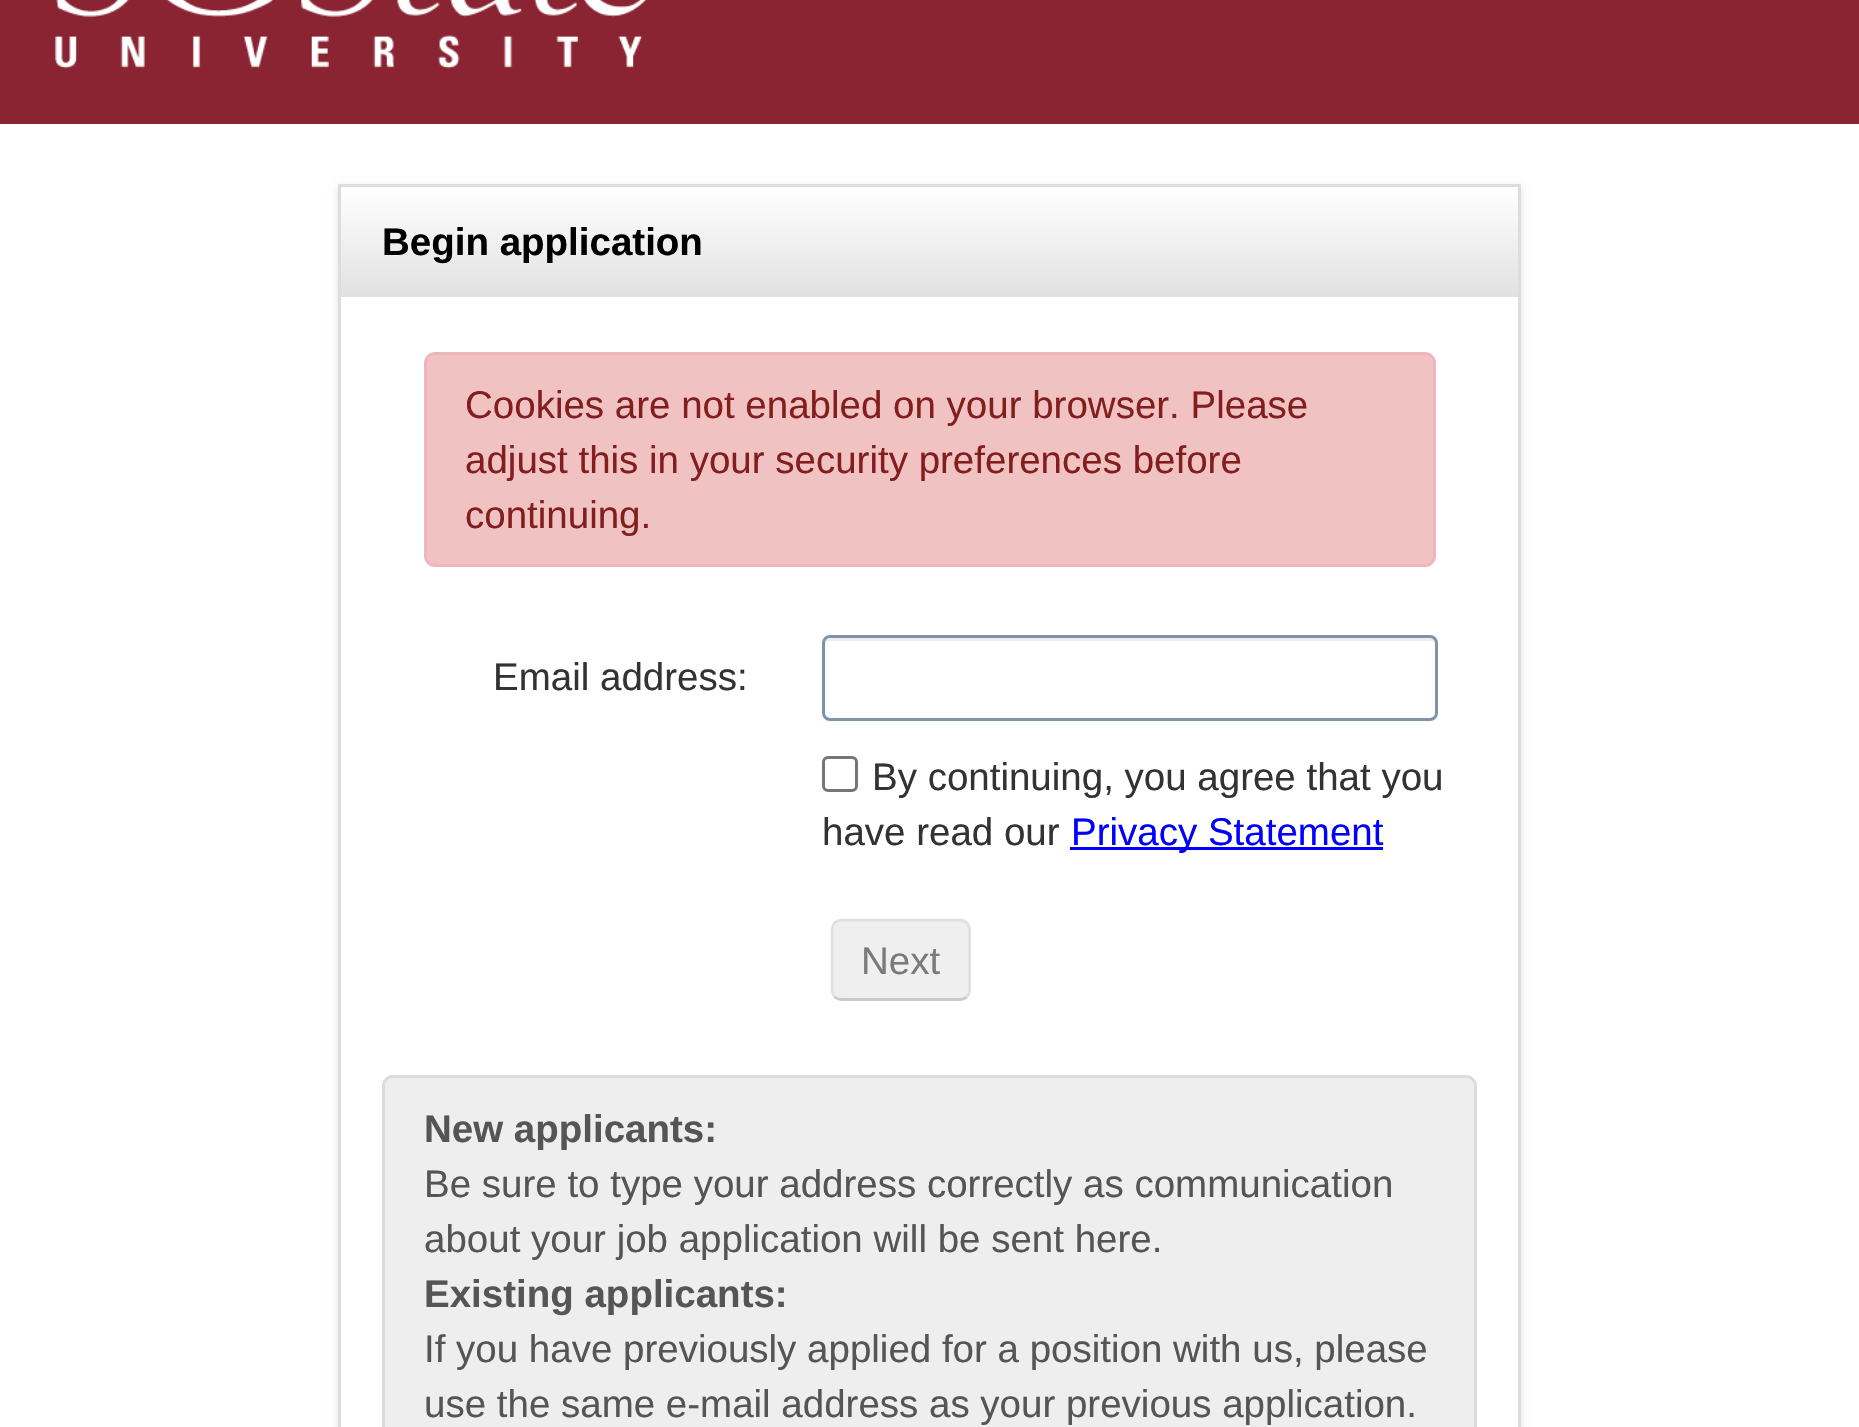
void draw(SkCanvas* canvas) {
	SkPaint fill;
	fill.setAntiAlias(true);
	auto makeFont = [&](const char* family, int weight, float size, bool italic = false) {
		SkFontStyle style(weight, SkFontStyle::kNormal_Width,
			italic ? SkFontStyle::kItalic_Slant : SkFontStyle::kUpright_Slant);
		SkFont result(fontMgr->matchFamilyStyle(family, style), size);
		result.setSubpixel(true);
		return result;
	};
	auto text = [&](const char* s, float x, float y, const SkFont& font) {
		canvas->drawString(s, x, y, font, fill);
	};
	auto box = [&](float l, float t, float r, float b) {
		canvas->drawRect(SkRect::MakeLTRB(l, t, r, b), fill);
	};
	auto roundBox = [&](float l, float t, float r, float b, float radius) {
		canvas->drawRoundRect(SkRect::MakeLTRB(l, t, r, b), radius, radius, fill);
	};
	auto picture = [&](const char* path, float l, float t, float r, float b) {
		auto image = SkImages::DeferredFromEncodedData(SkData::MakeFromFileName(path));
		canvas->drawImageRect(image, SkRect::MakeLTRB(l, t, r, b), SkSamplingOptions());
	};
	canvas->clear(0xFFFFFFFF);
	fill.setColor(0xFF8A2432);
	box(0, 0, 1859, 124);
	picture("image0.png", 55, 0, 647, 69);
	fill.setColor(0x1C000000);
	fill.setMaskFilter(SkMaskFilter::MakeBlur(kNormal_SkBlurStyle, 4));
	canvas->drawRect(SkRect::MakeLTRB(338, 187, 1521, 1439), fill);
	fill.setMaskFilter(nullptr);
	fill.setColor(0xFFFFFFFF);
	box(341, 297, 1518, 1427);
	fill.setStyle(SkPaint::kStroke_Style);
	fill.setStrokeWidth(3);
	fill.setColor(0xFFDDDDDD);
	canvas->drawRect(SkRect::MakeLTRB(339.5f, 185.5f, 1519.5f, 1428.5f), fill);
	fill.setStyle(SkPaint::kFill_Style);
	{
		const SkColor colors[] = {0xFFFFFFFF, 0xFFE1E1E1};
		const float stops[] = {0, 1};
		const SkPoint ends[] = {{930, 187}, {930, 297}};
		fill.setShader(SkGradientShader::MakeLinear(ends, colors, stops, 2, SkTileMode::kClamp));
		fill.setAlpha(255);
	}
	box(341, 187, 1518, 297);
	fill.setShader(nullptr);
	fill.setColor(0xFFF1C2C2);
	canvas->drawRoundRect(SkRect::MakeLTRB(425.5f, 353.5f, 1434.5f, 565.5f), 9.5f, 9.5f, fill);
	fill.setStyle(SkPaint::kStroke_Style);
	fill.setColor(0xFFEEB6BF);
	canvas->drawRoundRect(SkRect::MakeLTRB(425.5f, 353.5f, 1434.5f, 565.5f), 9.5f, 9.5f, fill);
	fill.setStyle(SkPaint::kFill_Style);
	fill.setColor(0xFFECECEC);
	canvas->drawPath(SkPathBuilder().moveTo(830, 641).lineTo(1430, 641).cubicTo(1433, 641, 1436, 643, 1436, 646).lineTo(1436, 644).cubicTo(1436, 641, 1433, 638, 1430, 638).lineTo(831, 638).cubicTo(828, 638, 825, 641, 825, 644).lineTo(825, 646).cubicTo(825, 643, 827, 641, 830, 641).close().detach(), fill);
	fill.setStyle(SkPaint::kStroke_Style);
	fill.setColor(0xFF7D94AB);
	canvas->drawRoundRect(SkRect::MakeLTRB(823.5f, 636.5f, 1436.5f, 719.5f), 6.5f, 6.5f, fill);
	fill.setColor(0xFF767676);
	canvas->drawRoundRect(SkRect::MakeLTRB(823.5f, 757.5f, 856.5f, 790.5f), 4.5f, 4.5f, fill);
	fill.setStyle(SkPaint::kFill_Style);
	fill.setColor(0xFF0000FF);
	box(1070, 847, 1383, 850);
	fill.setColor(0xFFEFEFEF);
	roundBox(831, 919, 971, 1001, 11);
	fill.setStyle(SkPaint::kStroke_Style);
	fill.setStrokeWidth(2.8f);
	fill.setColor(0x40595959);
	canvas->drawPath(SkPathBuilder().moveTo(966.5f, 997).cubicTo(965, 998.5f, 962.5f, 999.5f, 960, 999.5f).lineTo(841.5f, 999.5f).cubicTo(839, 999.5f, 836.5f, 998.5f, 834.5f, 997).detach(), fill);
	fill.setColor(0x1A595959);
	canvas->drawPath(SkPathBuilder().moveTo(834.5f, 997).cubicTo(833, 995, 832, 992.5f, 832, 990).lineTo(832, 929.5f).cubicTo(832, 927, 833, 924.5f, 834.5f, 922.5f).cubicTo(836.5f, 921, 839, 920, 841.5f, 920).lineTo(960, 920).cubicTo(962.5f, 920, 965, 921, 966.5f, 922.5f).cubicTo(968.5f, 924.5f, 969.5f, 927, 969.5f, 929.5f).lineTo(969.5f, 990).cubicTo(969.5f, 992.5f, 968.5f, 995, 966.5f, 997).detach(), fill);
	fill.setStyle(SkPaint::kFill_Style);
	fill.setColor(0xFFEEEEEE);
	canvas->drawRoundRect(SkRect::MakeLTRB(383.5f, 1076.5f, 1475.5f, 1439.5f), 9.5f, 9.5f, fill);
	fill.setStyle(SkPaint::kStroke_Style);
	fill.setStrokeWidth(3);
	fill.setColor(0xFFDCDCDC);
	canvas->drawRoundRect(SkRect::MakeLTRB(383.5f, 1076.5f, 1475.5f, 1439.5f), 9.5f, 9.5f, fill);
	auto font1 = makeFont("Liberation Sans", 700, 38.5f);
	fill.setStyle(SkPaint::kFill_Style);
	fill.setColor(0xFF000000);
	text("Begin application", 382, 255, font1);
	auto font2 = makeFont("Liberation Sans", 400, 38.5f);
	fill.setColor(0xFF821E1E);
	text("Cookies are not enabled on your browser. Please", 465, 418, font2);
	text("adjust this in your security preferences before", 465, 473, font2);
	text("continuing.", 465, 528, font2);
	fill.setColor(0xFF333333);
	text("Email address:", 493, 690, font2);
	text("By continuing, you agree that you", 872, 790, font2);
	text("have read our", 822, 845, font2);
	fill.setColor(0xFF0000FF);
	text("Privacy Statement", 1071, 845, font2);
	fill.setColor(0xFF7A7A7A);
	text("Next", 861, 974, font2);
	fill.setColor(0xFF555555);
	text("New applicants:", 424, 1142, font1);
	text("Be sure to type your address correctly as communication", 424, 1197, font2);
	text("about your job application will be sent here.", 424, 1252, font2);
	text("Existing applicants:", 424, 1307, font1);
	text("If you have previously applied for a position with us, please", 424, 1362, font2);
	text("use the same e-mail address as your previous application.", 424, 1417, font2);
}
